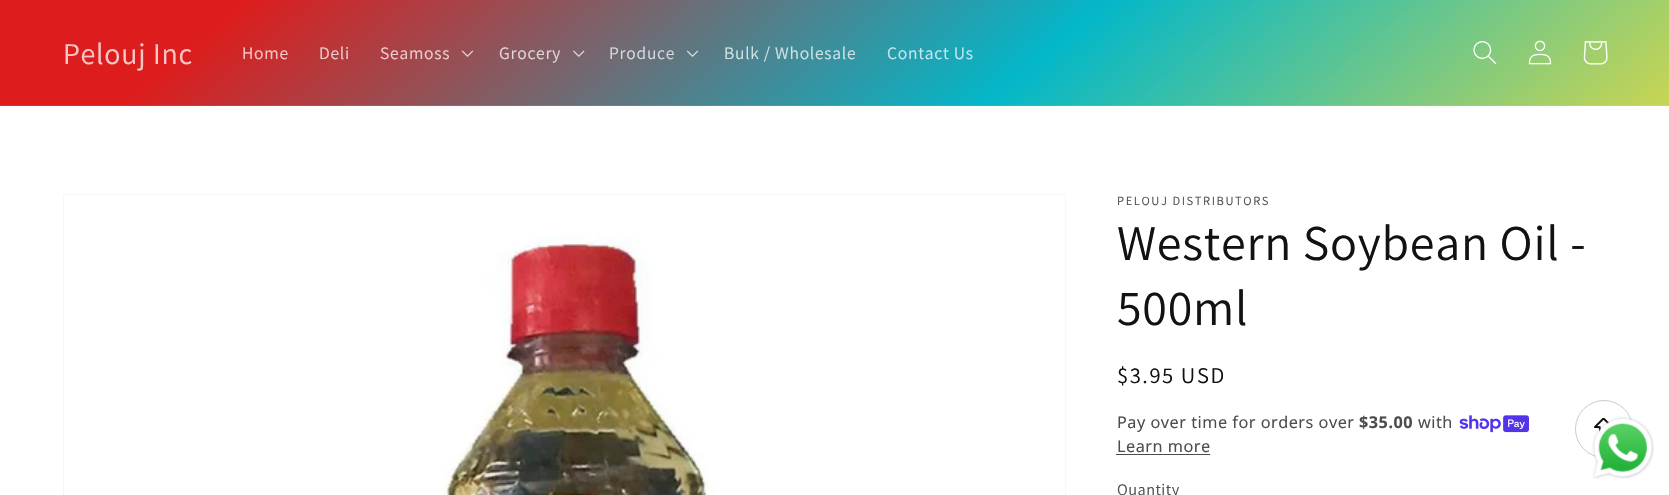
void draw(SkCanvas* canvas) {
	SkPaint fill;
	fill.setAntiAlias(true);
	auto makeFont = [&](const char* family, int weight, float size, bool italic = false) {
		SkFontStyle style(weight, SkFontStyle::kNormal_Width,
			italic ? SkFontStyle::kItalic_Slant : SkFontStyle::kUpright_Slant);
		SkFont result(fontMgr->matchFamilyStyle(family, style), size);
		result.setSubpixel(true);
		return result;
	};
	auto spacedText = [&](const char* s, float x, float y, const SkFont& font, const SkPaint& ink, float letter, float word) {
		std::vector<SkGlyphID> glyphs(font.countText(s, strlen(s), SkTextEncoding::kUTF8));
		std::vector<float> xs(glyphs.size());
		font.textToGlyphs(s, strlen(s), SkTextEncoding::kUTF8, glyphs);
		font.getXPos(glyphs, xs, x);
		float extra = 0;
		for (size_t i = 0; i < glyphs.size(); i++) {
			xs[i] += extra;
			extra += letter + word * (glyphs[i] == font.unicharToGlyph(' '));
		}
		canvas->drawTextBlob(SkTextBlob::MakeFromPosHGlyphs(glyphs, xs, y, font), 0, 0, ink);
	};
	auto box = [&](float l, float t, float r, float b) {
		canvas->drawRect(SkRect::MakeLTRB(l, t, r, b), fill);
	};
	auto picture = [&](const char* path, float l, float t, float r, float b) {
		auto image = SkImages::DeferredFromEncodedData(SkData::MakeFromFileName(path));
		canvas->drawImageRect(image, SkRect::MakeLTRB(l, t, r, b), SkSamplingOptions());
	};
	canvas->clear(0xFFFFFFFF);
	{
		const SkColor colors[] = {0xFFDD1D1D, 0xFF03B7C9, 0xFFFADC36};
		const float stops[] = {0.11f, 0.49f, 0.87f};
		const SkPoint ends[] = {{368, -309}, {1302, 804}};
		fill.setShader(SkGradientShader::MakeLinear(ends, colors, stops, 3, SkTileMode::kClamp));
		fill.setAlpha(255);
	}
	box(0, 0, 1669, 105);
	{
		const SkColor colors[] = {0xFFE02F2F, 0xFF17BDCD, 0xFFFADF46};
		const float stops[] = {0.11f, 0.49f, 0.87f};
		const SkPoint ends[] = {{368, -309}, {1302, 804}};
		fill.setShader(SkGradientShader::MakeLinear(ends, colors, stops, 3, SkTileMode::kClamp));
		fill.setAlpha(255);
	}
	box(0, 105, 1669, 106);
	picture("image0.png", 461, 50, 474, 57);
	picture("image1.png", 573, 50, 585, 57);
	picture("image2.png", 686, 50, 699, 57);
	picture("image3.png", 1473, 41, 1497, 65);
	picture("image4.png", 1528, 40, 1552, 65);
	picture("image5.png", 1583, 41, 1608, 65);
	fill.setStyle(SkPaint::kStroke_Style);
	fill.setStrokeWidth(1);
	fill.setShader(nullptr);
	fill.setColor(0xFFF6F6F6);
	canvas->drawRect(SkRect::MakeLTRB(63.5f, 194.5f, 1065.5f, 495.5f), fill);
	picture("image6.png", 442, 234, 716, 495);
	picture("image7.png", 1459, 415, 1529, 433);
	fill.setStyle(SkPaint::kFill_Style);
	fill.setColor(0xFF4D4D4D);
	box(1116, 454, 1210, 455);
	fill.setStyle(SkPaint::kStroke_Style);
	fill.setColor(0xFFC4CDD5);
	canvas->drawCircle(1604, 429, 28.5f, fill);
	picture("image8.png", 1594, 418, 1610, 432);
	picture("image9.png", 1592, 416, 1654, 479);
	auto font1 = makeFont("Assistant", 400, 30);
	fill.setStyle(SkPaint::kFill_Style);
	fill.setColor(0xFFF6C7C7);
	spacedText("Pelouj Inc", 63, 64, font1, fill, 0.75f, 0);
	auto font2 = makeFont("Assistant", 400, 17.5f);
	spacedText("Home", 242, 59, font2, fill, 0.75f, 0);
	fill.setColor(0xFFEDCDCE);
	spacedText("Deli", 319, 59, font2, fill, 0.75f, 0);
	spacedText("Seamoss", 380, 59, font2, fill, 0.75f, 0);
	fill.setColor(0xFFE1D6D8);
	spacedText("Grocery", 499, 59, font2, fill, 0.75f, 0);
	fill.setColor(0xFFD9DBDD);
	spacedText("Produce", 609, 59, font2, fill, 0.75f, 0);
	fill.setColor(0xFFD0E2E5);
	spacedText("Bulk / Wholesale", 724, 59, font2, fill, 0.75f, 0);
	fill.setColor(0xFFC7E8EC);
	spacedText("Contact Us", 887, 59, font2, fill, 0.75f, 0);
	auto font3 = makeFont("Assistant", 400, 12.5f);
	fill.setColor(0xFF4D4D4D);
	spacedText("PELOUJ DISTRIBUTORS", 1117, 205, font3, fill, 1.6f, 0);
	auto font4 = makeFont("Assistant", 400, 50);
	fill.setColor(0xFF121212);
	spacedText("Western Soybean Oil -", 1117, 260, font4, fill, 0.75f, 0);
	spacedText("500ml", 1117, 325, font4, fill, 0.75f, 0);
	auto font5 = makeFont("Assistant", 400, 22.5f);
	spacedText("$3.95 USD", 1117, 383, font5, fill, 1.6f, 0);
	auto font6 = makeFont("Noto Sans", 400, 16.25f);
	fill.setColor(0xFF4D4D4D);
	spacedText("Pay over time for orders over", 1117, 428, font6, fill, 0.5f, 0);
	auto font7 = makeFont("Noto Sans", 700, 16.25f);
	spacedText("$35.00", 1359, 428, font7, fill, 0.5f, 0);
	spacedText("with", 1418, 428, font6, fill, 0.5f, 0);
	spacedText("Learn more", 1117, 452, font6, fill, 0.5f, 0);
	auto font8 = makeFont("Assistant", 400, 16.25f);
	spacedText("Quantity", 1117, 495, font8, fill, 0.5f, 0);
}
